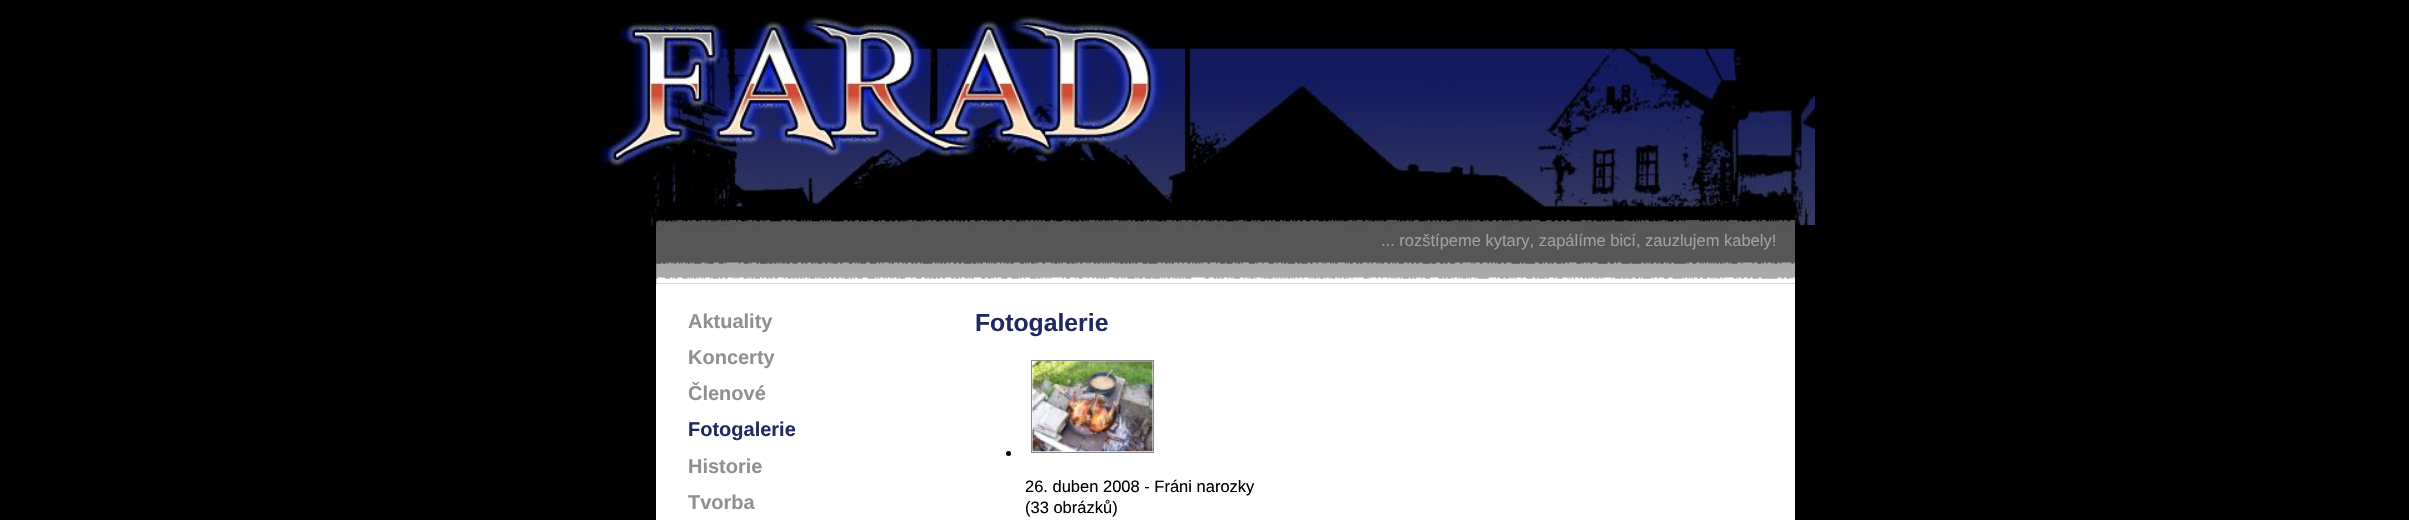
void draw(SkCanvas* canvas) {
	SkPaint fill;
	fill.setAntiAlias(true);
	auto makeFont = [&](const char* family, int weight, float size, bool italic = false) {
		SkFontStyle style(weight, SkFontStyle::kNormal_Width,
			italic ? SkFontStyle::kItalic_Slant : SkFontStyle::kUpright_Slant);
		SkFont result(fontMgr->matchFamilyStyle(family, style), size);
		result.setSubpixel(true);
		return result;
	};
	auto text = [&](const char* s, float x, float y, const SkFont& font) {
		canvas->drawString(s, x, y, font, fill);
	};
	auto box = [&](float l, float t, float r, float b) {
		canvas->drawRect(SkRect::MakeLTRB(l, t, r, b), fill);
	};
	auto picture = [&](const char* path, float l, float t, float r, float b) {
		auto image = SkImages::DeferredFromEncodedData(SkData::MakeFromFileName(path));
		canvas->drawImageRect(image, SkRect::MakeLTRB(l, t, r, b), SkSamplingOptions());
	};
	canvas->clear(0xFF000000);
	picture("image0.png", 595, 10, 1815, 225);
	fill.setColor(0xFFFFFFFF);
	box(656, 284, 1795, 520);
	fill.setColor(0xFF565656);
	box(656, 225, 1795, 284);
	picture("image1.png", 656, 262, 1795, 284);
	fill.setStyle(SkPaint::kStroke_Style);
	fill.setStrokeWidth(1);
	fill.setColor(0xFF888888);
	canvas->drawRect(SkRect::MakeLTRB(1031.5f, 360.5f, 1153.5f, 452.5f), fill);
	picture("image2.png", 1032, 361, 1153, 452);
	fill.setStyle(SkPaint::kFill_Style);
	fill.setColor(0xFF000000);
	canvas->drawCircle(1008.5f, 453.5f, 2.5f, fill);
	auto font1 = makeFont("Liberation Sans", 400, 16.5f);
	fill.setColor(0xFFA0A0A0);
	text("... rozštípeme kytary, zapálíme bicí, zauzlujem kabely!", 1381, 246, font1);
	auto font2 = makeFont("Liberation Sans", 700, 20);
	fill.setColor(0xFF909090);
	text("Aktuality", 688, 328, font2);
	text("Koncerty", 688, 364, font2);
	text("Členové", 688, 400, font2);
	fill.setColor(0xFF222960);
	text("Fotogalerie", 688, 436, font2);
	fill.setColor(0xFF909090);
	text("Historie", 688, 473, font2);
	text("Tvorba", 688, 509, font2);
	auto font3 = makeFont("Liberation Sans", 700, 24.75f);
	fill.setColor(0xFF222960);
	text("Fotogalerie", 975, 331, font3);
	fill.setColor(0xFF000000);
	text("26. duben 2008 - Fráni narozky", 1025, 492, font1);
	text("(33 obrázků)", 1025, 513, font1);
}
